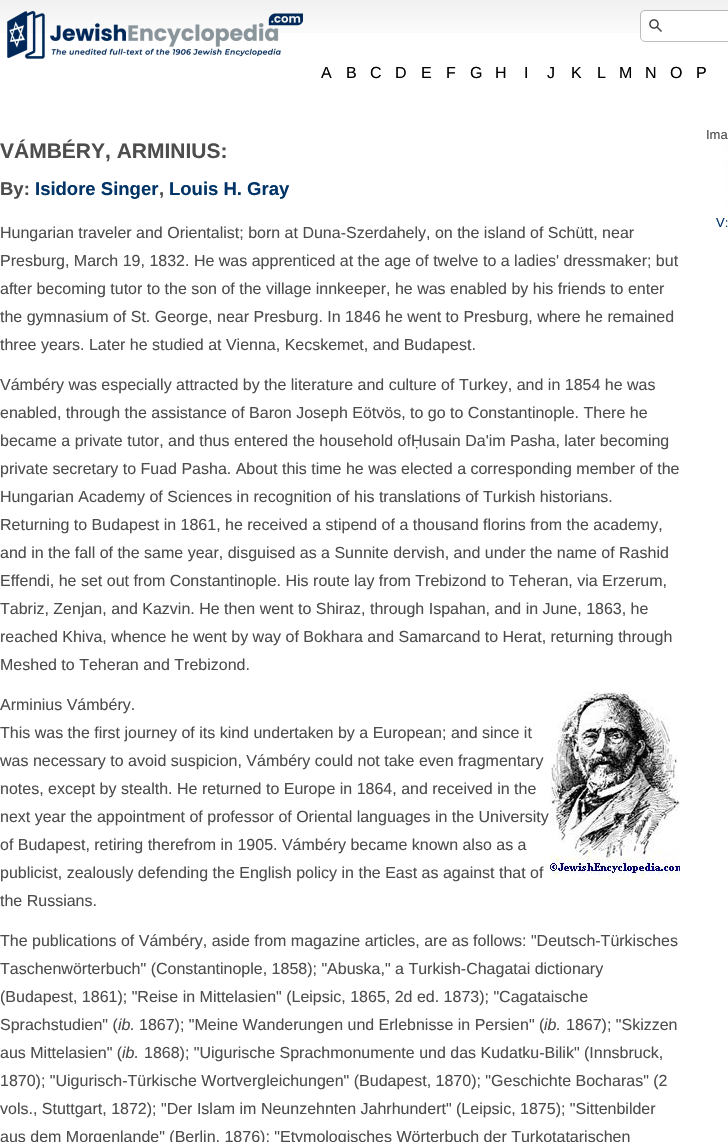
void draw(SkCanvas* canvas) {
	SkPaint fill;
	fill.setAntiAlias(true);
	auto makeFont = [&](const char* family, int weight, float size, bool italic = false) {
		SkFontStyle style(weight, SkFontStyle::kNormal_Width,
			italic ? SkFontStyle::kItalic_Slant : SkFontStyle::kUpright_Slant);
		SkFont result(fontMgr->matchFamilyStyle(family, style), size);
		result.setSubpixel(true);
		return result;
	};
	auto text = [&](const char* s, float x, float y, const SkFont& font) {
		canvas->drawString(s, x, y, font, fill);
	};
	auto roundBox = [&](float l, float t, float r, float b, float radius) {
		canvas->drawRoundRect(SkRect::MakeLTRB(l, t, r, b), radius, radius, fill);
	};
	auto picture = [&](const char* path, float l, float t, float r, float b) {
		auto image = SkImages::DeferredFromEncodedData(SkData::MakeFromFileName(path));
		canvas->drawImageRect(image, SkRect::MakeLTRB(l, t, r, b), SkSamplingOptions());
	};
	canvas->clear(0xFFFFFFFF);
	picture("image0.png", 0, 0, 728, 33);
	picture("image1.png", 7, 10, 303, 59);
	fill.setColor(0xFFFFFFFF);
	roundBox(641, 11, 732, 41, 4);
	picture("image2.png", 649, 19, 662, 32);
	fill.setStyle(SkPaint::kStroke_Style);
	fill.setStrokeWidth(1);
	fill.setColor(0x40000000);
	canvas->drawRoundRect(SkRect::MakeLTRB(640.5f, 10.5f, 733.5f, 41.5f), 4.5f, 4.5f, fill);
	picture("image3.png", 550, 691, 680, 880);
	picture("image4.png", 724, 144, 728, 206);
	auto font1 = makeFont("Liberation Sans", 400, 16);
	fill.setStyle(SkPaint::kFill_Style);
	fill.setColor(0xFF010101);
	text("A", 321, 78, font1);
	text("B", 346, 78, font1);
	text("C", 370, 78, font1);
	text("D", 395, 78, font1);
	text("E", 421, 78, font1);
	text("F", 446, 78, font1);
	text("G", 470, 78, font1);
	text("H", 495, 78, font1);
	text("I", 524, 78, font1);
	text("J", 547, 78, font1);
	text("K", 571, 78, font1);
	text("L", 597, 78, font1);
	text("M", 619, 78, font1);
	text("N", 645, 78, font1);
	text("O", 670, 78, font1);
	text("P", 696, 78, font1);
	auto font2 = makeFont("Liberation Sans", 700, 21);
	fill.setColor(0xFF4D4D4D);
	text("VÁMBÉRY, ARMINIUS:", 0, 158, font2);
	auto font3 = makeFont("Liberation Sans", 700, 18.5f);
	text("By:", 0, 195, font3);
	fill.setColor(0xFF003366);
	text("Isidore Singer", 35, 195, font3);
	fill.setColor(0xFF4D4D4D);
	text(",", 159, 195, font3);
	fill.setColor(0xFF003366);
	text("Louis H. Gray", 169, 195, font3);
	fill.setColor(0xFF4D4D4D);
	text("Hungarian traveler and Orientalist; born at Duna-Szerdahely, on the island of Schütt, near", 0, 238, font1);
	text("Presburg, March 19, 1832. He was apprenticed at the age of twelve to a ladies' dressmaker; but", 0, 266, font1);
	text("after becoming tutor to the son of the village innkeeper, he was enabled by his friends to enter", 0, 294, font1);
	text("the gymnasium of St. George, near Presburg. In 1846 he went to Presburg, where he remained", 0, 322, font1);
	text("three years. Later he studied at Vienna, Kecskemet, and Budapest.", 0, 350, font1);
	text("Vámbéry was especially attracted by the literature and culture of Turkey, and in 1854 he was", 0, 390, font1);
	text("enabled, through the assistance of Baron Joseph Eötvös, to go to Constantinople. There he", 0, 418, font1);
	text("became a private tutor, and thus entered the household ofḤusain Da'im Pasha, later becoming", 0, 446, font1);
	text("private secretary to Fuad Pasha. About this time he was elected a corresponding member of the", 0, 474, font1);
	text("Hungarian Academy of Sciences in recognition of his translations of Turkish historians.", 0, 502, font1);
	text("Returning to Budapest in 1861, he received a stipend of a thousand florins from the academy,", 0, 530, font1);
	text("and in the fall of the same year, disguised as a Sunnite dervish, and under the name of Rashid", 0, 558, font1);
	text("Effendi, he set out from Constantinople. His route lay from Trebizond to Teheran, via Erzerum,", 0, 586, font1);
	text("Tabriz, Zenjan, and Kazvin. He then went to Shiraz, through Ispahan, and in June, 1863, he", 0, 614, font1);
	text("reached Khiva, whence he went by way of Bokhara and Samarcand to Herat, returning through", 0, 642, font1);
	text("Meshed to Teheran and Trebizond.", 0, 670, font1);
	text("Arminius Vámbéry.", 0, 710, font1);
	text("This was the first journey of its kind undertaken by a European; and since it", 0, 738, font1);
	text("was necessary to avoid suspicion, Vámbéry could not take even fragmentary", 0, 766, font1);
	text("notes, except by stealth. He returned to Europe in 1864, and received in the", 0, 794, font1);
	text("next year the appointment of professor of Oriental languages in the University", 0, 822, font1);
	text("of Budapest, retiring therefrom in 1905. Vámbéry became known also as a", 0, 850, font1);
	text("publicist, zealously defending the English policy in the East as against that of", 0, 878, font1);
	text("the Russians.", 0, 906, font1);
	text("The publications of Vámbéry, aside from magazine articles, are as follows: \"Deutsch-Türkisches", 0, 946, font1);
	text("Taschenwörterbuch\" (Constantinople, 1858); \"Abuska,\" a Turkish-Chagatai dictionary", 0, 974, font1);
	text("(Budapest, 1861); \"Reise in Mittelasien\" (Leipsic, 1865, 2d ed. 1873); \"Cagataische", 0, 1002, font1);
	text("Sprachstudien\" (", 0, 1030, font1);
	auto font4 = makeFont("Liberation Sans", 400, 16, true);
	text("ib.", 118, 1030, font4);
	text("1867); \"Meine Wanderungen und Erlebnisse in Persien\" (", 139, 1030, font1);
	text("ib.", 544, 1030, font4);
	text("1867); \"Skizzen", 566, 1030, font1);
	text("aus Mittelasien\" (", 0, 1058, font1);
	text("ib.", 122, 1058, font4);
	text("1868); \"Uigurische Sprachmonumente und das Kudatku-Bilik\" (Innsbruck,", 144, 1058, font1);
	text("1870); \"Uigurisch-Türkische Wortvergleichungen\" (Budapest, 1870); \"Geschichte Bocharas\" (2", 0, 1086, font1);
	text("vols., Stuttgart, 1872); \"Der Islam im Neunzehnten Jahrhundert\" (Leipsic, 1875); \"Sittenbilder", 0, 1114, font1);
	text("aus dem Morgenlande\" (Berlin, 1876); \"Etymologisches Wörterbuch der Turkotatarischen", 0, 1142, font1);
	auto font5 = makeFont("Liberation Sans", 400, 13);
	text("Ima", 706, 139, font5);
	fill.setColor(0xFF003366);
	text("V:", 716, 227, font5);
}
